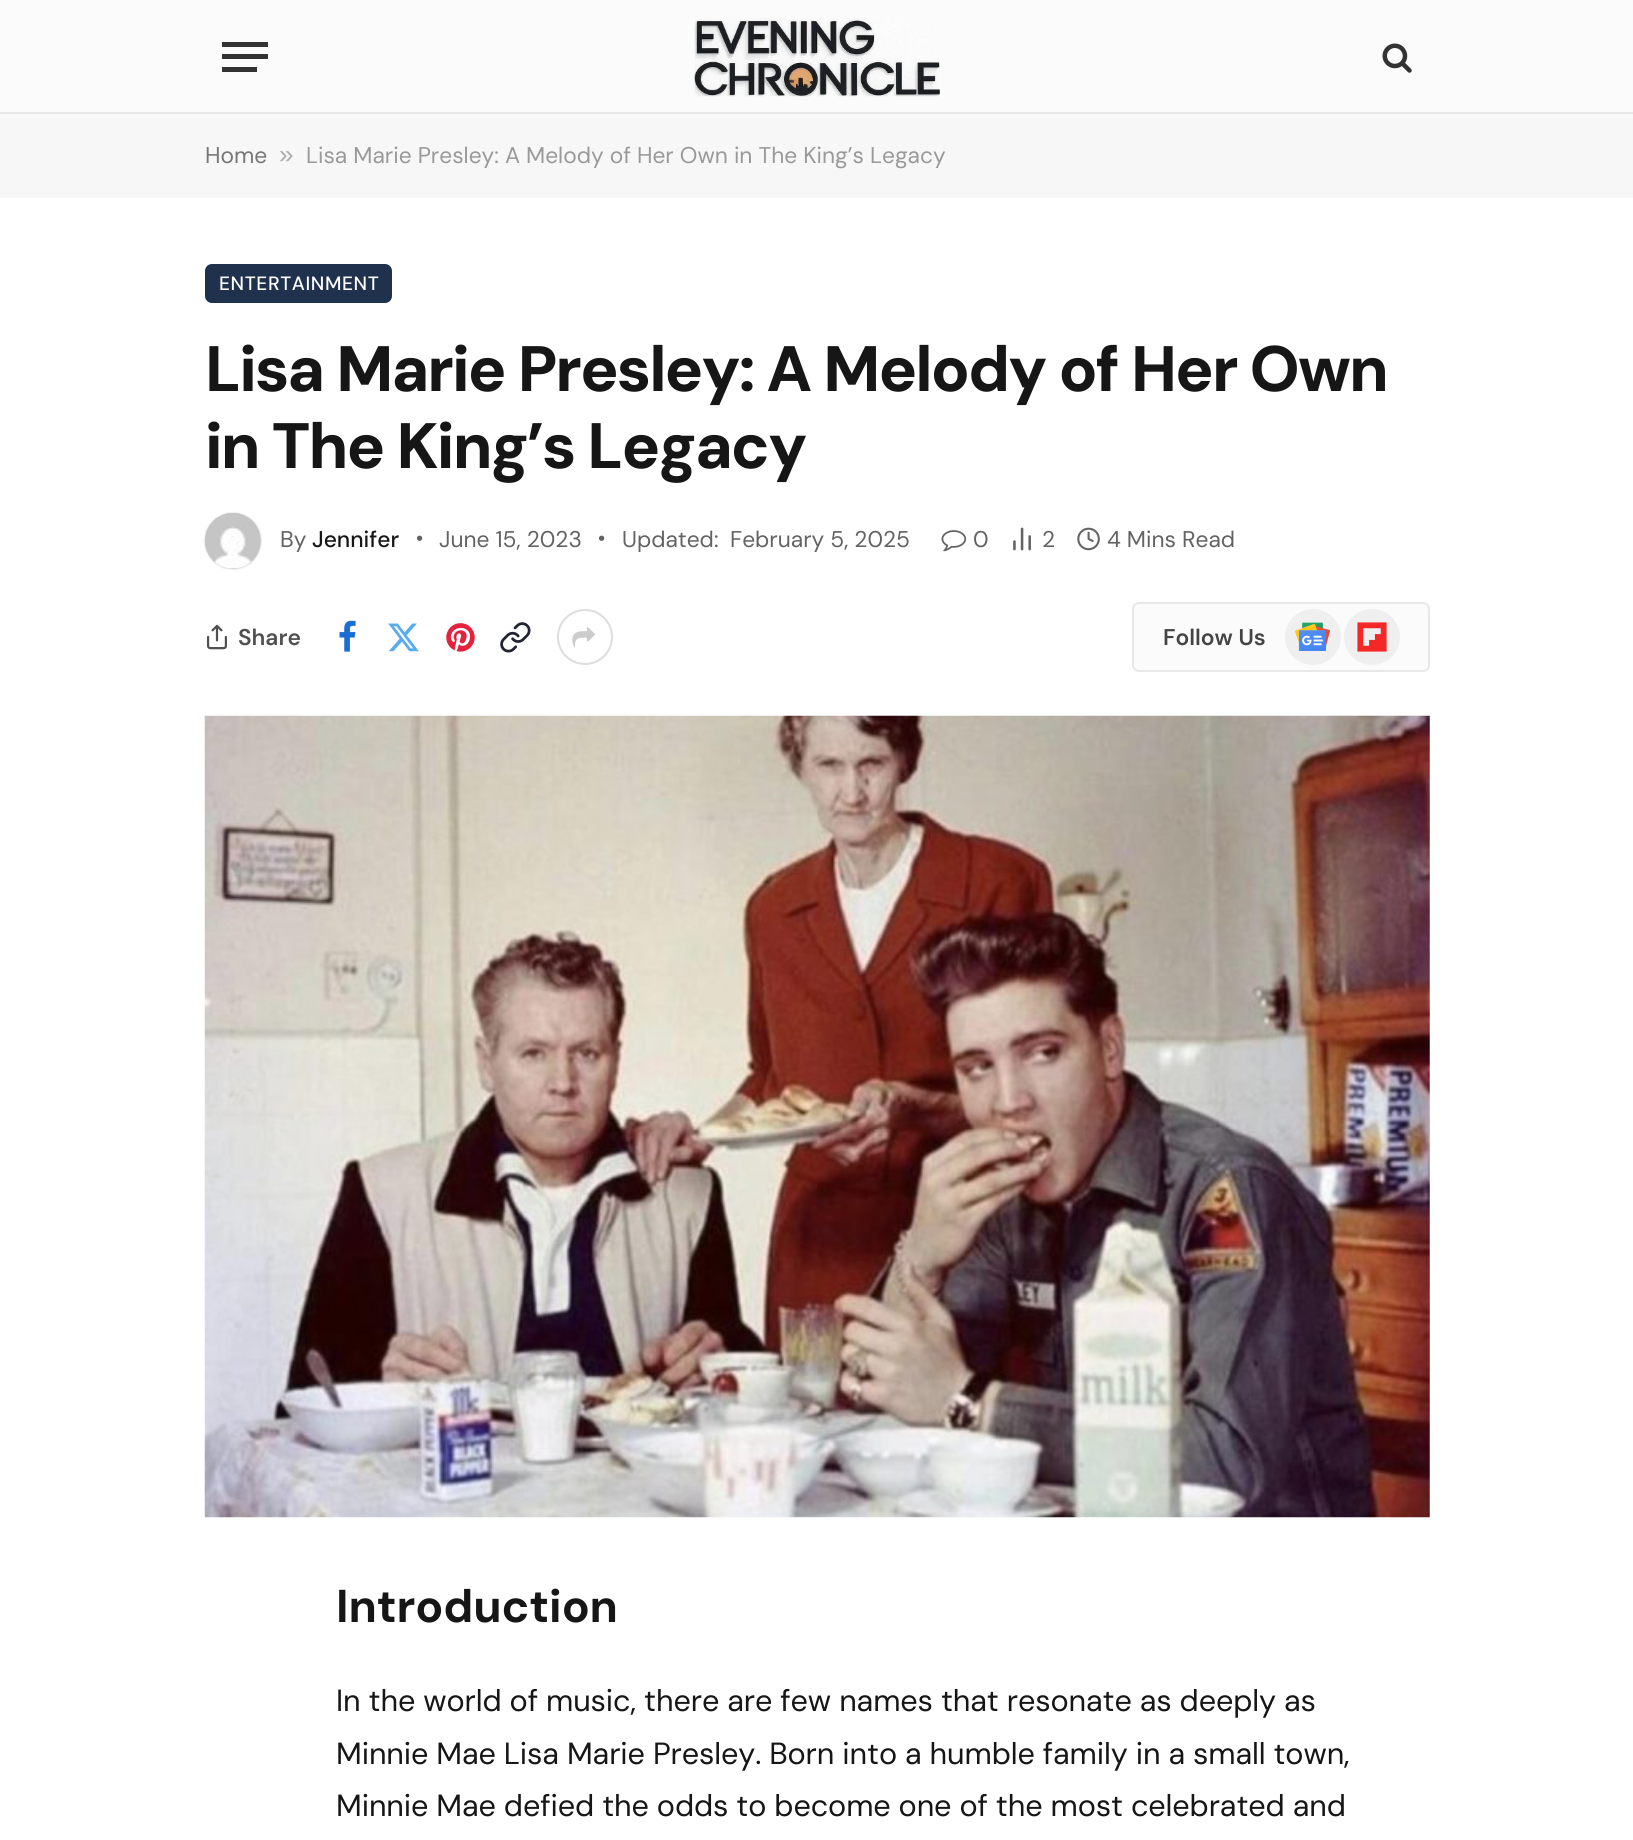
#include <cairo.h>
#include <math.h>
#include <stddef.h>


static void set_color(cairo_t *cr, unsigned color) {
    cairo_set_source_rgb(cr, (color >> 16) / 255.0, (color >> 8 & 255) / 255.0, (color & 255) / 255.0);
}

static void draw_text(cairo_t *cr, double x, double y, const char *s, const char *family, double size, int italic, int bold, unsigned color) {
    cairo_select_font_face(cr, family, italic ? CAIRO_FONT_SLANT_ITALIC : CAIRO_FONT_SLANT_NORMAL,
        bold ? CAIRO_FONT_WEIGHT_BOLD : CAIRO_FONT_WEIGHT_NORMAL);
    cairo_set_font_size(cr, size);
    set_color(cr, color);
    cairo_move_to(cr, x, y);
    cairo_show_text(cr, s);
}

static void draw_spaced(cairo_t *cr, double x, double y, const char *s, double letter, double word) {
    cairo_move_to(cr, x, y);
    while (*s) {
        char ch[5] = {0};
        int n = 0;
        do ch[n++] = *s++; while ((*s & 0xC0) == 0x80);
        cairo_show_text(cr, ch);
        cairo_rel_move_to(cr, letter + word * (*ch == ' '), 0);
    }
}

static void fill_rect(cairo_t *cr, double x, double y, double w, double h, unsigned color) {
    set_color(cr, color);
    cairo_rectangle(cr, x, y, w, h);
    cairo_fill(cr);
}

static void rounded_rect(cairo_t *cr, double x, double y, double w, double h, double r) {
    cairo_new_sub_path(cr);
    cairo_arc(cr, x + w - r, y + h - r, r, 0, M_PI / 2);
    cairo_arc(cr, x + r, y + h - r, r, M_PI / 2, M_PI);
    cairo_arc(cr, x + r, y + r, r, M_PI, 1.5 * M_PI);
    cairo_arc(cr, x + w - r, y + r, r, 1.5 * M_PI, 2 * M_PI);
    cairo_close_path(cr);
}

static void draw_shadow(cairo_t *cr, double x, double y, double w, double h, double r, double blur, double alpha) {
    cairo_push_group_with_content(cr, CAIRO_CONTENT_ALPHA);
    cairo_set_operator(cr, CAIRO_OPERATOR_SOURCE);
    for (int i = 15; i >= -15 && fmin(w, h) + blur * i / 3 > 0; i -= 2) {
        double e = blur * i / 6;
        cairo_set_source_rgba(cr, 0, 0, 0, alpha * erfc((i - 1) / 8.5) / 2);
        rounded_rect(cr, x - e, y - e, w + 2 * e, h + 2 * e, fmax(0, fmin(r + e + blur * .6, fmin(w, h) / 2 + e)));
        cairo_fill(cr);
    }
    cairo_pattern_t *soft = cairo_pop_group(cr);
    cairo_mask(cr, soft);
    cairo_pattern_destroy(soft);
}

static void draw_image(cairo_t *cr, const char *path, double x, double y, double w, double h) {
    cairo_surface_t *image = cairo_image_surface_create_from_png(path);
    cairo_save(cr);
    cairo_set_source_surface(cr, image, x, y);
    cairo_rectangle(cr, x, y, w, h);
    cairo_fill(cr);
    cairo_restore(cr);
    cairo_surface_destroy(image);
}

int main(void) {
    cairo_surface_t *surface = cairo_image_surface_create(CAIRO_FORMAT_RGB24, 1633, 1840);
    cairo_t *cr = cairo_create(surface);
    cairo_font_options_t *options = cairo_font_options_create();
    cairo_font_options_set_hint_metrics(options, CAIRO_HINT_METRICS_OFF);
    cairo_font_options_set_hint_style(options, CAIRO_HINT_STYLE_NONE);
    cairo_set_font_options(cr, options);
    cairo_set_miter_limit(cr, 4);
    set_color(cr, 0xFFFFFF);
    cairo_paint(cr);
    fill_rect(cr, 0, 0, 1633, 112, 0xFBFBFB);
    fill_rect(cr, 0, 112, 1633, 2, 0xE8E8E8);
    fill_rect(cr, 222, 67, 35, 5, 0x333333);
    fill_rect(cr, 222, 42, 46, 5, 0x333333);
    fill_rect(cr, 222, 54, 46, 5, 0x333333);
    draw_image(cr, "assets/img1.png", 694, 17, 246, 80);
    draw_image(cr, "assets/img2.png", 1382, 43, 30, 30);
    fill_rect(cr, 0, 114, 1633, 84, 0xF7F7F7);
    draw_text(cr, 205, 163, "Home", "DM Sans", 22.75, 0, 0, 0x777777);
    draw_text(cr, 279, 163, "»", "Liberation Sans", 26, 0, 0, 0xACACAC);
    draw_text(cr, 306, 163, "Lisa Marie Presley: A Melody of Her Own in The King’s Legacy", "DM Sans", 22.75, 0, 0, 0x999999);
    set_color(cr, 0x1F314D);
    rounded_rect(cr, 205, 264, 187, 39, 7);
    cairo_fill(cr);
    cairo_select_font_face(cr, "DM Sans Medium", CAIRO_FONT_SLANT_NORMAL, CAIRO_FONT_WEIGHT_NORMAL);
    cairo_set_font_size(cr, 19.25);
    set_color(cr, 0xFFFFFF);
    draw_spaced(cr, 219, 290, "ENTERTAINMENT", 0.6, 0);
    cairo_select_font_face(cr, "DM Sans ExtraBold", CAIRO_FONT_SLANT_NORMAL, CAIRO_FONT_WEIGHT_NORMAL);
    cairo_set_font_size(cr, 64.1);
    set_color(cr, 0x161616);
    draw_spaced(cr, 205, 391, "Lisa Marie Presley: A Melody of Her Own", -1.9, 0);
    draw_spaced(cr, 205, 468, "in The King’s Legacy", -1.9, 0);
    set_color(cr, 0x000000);
    draw_shadow(cr, 205, 513, 56, 56, 28, 1, 0.2);
    draw_image(cr, "assets/img3.png", 205, 513, 56, 55);
    draw_text(cr, 280, 547, "By", "DM Sans", 22.75, 0, 0, 0x636363);
    draw_text(cr, 312, 547, "Jennifer", "DM Sans Medium", 22.75, 0, 0, 0x161616);
    draw_text(cr, 415, 554, "·", "DM Sans", 46, 0, 0, 0x636363);
    draw_text(cr, 439, 547, "June 15, 2023", "DM Sans", 22.75, 0, 0, 0x636363);
    draw_text(cr, 597, 554, "·", "DM Sans", 46, 0, 0, 0x636363);
    draw_text(cr, 622, 547, "Updated:", "DM Sans", 22.75, 0, 0, 0x636363);
    draw_text(cr, 730, 547, "February 5, 2025", "DM Sans", 22.75, 0, 0, 0x636363);
    draw_image(cr, "assets/img4.png", 941, 530, 26, 22);
    draw_text(cr, 973, 547, "0", "DM Sans", 22.75, 0, 0, 0x636363);
    draw_image(cr, "assets/img5.png", 1013, 527, 18, 24);
    draw_text(cr, 1042, 547, "2", "DM Sans", 22.75, 0, 0, 0x636363);
    draw_image(cr, "assets/img6.png", 1077, 527, 23, 24);
    draw_text(cr, 1107, 547, "4 Mins Read", "DM Sans", 22.75, 0, 0, 0x636363);
    draw_image(cr, "assets/img7.png", 206, 624, 22, 26);
    draw_text(cr, 238, 645, "Share", "DM Sans SemiBold", 22.75, 0, 0, 0x505050);
    draw_image(cr, "assets/img8.png", 339, 620, 17, 32);
    draw_image(cr, "assets/img9.png", 388, 623, 31, 29);
    draw_image(cr, "assets/img10.png", 446, 623, 29, 29);
    draw_image(cr, "assets/img11.png", 500, 622, 31, 31);
    cairo_arc(cr, 585, 637, 27, 0, 2 * M_PI);
    set_color(cr, 0xDDDDDD);
    cairo_stroke(cr);
    draw_image(cr, "assets/img12.png", 572, 627, 23, 21);
    set_color(cr, 0xFBFBFB);
    rounded_rect(cr, 1133, 603, 296, 68, 6);
    cairo_fill_preserve(cr);
    set_color(cr, 0xE8E8E8);
    cairo_stroke(cr);
    draw_text(cr, 1163, 645, "Follow Us", "DM Sans SemiBold", 22.75, 0, 0, 0x444444);
    set_color(cr, 0xEFEFEF);
    cairo_new_path(cr);
    cairo_arc(cr, 1313, 637, 28, 0, 2 * M_PI);
    cairo_fill(cr);
    draw_image(cr, "assets/img13.png", 1295, 622, 35, 29);
    cairo_arc(cr, 1372, 637, 28, 0, 2 * M_PI);
    cairo_fill(cr);
    draw_image(cr, "assets/img14.png", 1357, 622, 30, 30);
    draw_image(cr, "assets/img15.png", 204, 715, 1226, 803);
    cairo_select_font_face(cr, "DM Sans", CAIRO_FONT_SLANT_NORMAL, CAIRO_FONT_WEIGHT_BOLD);
    cairo_set_font_size(cr, 46);
    set_color(cr, 0x161616);
    draw_spaced(cr, 336, 1622, "Introduction", -0.1, 0);
    cairo_select_font_face(cr, "DM Sans", CAIRO_FONT_SLANT_NORMAL, CAIRO_FONT_WEIGHT_NORMAL);
    cairo_set_font_size(cr, 30.6);
    draw_spaced(cr, 336, 1711, "In the world of music, there are few names that resonate as deeply as", -0.1, 0);
    draw_spaced(cr, 336, 1764, "Minnie Mae Lisa Marie Presley. Born into a humble family in a small town,", -0.1, 0);
    draw_spaced(cr, 336, 1816, "Minnie Mae defied the odds to become one of the most celebrated and", -0.1, 0);
    cairo_surface_write_to_png(surface, "output.png");
    cairo_font_options_destroy(options);
    cairo_destroy(cr);
    cairo_surface_destroy(surface);
    return 0;
}
